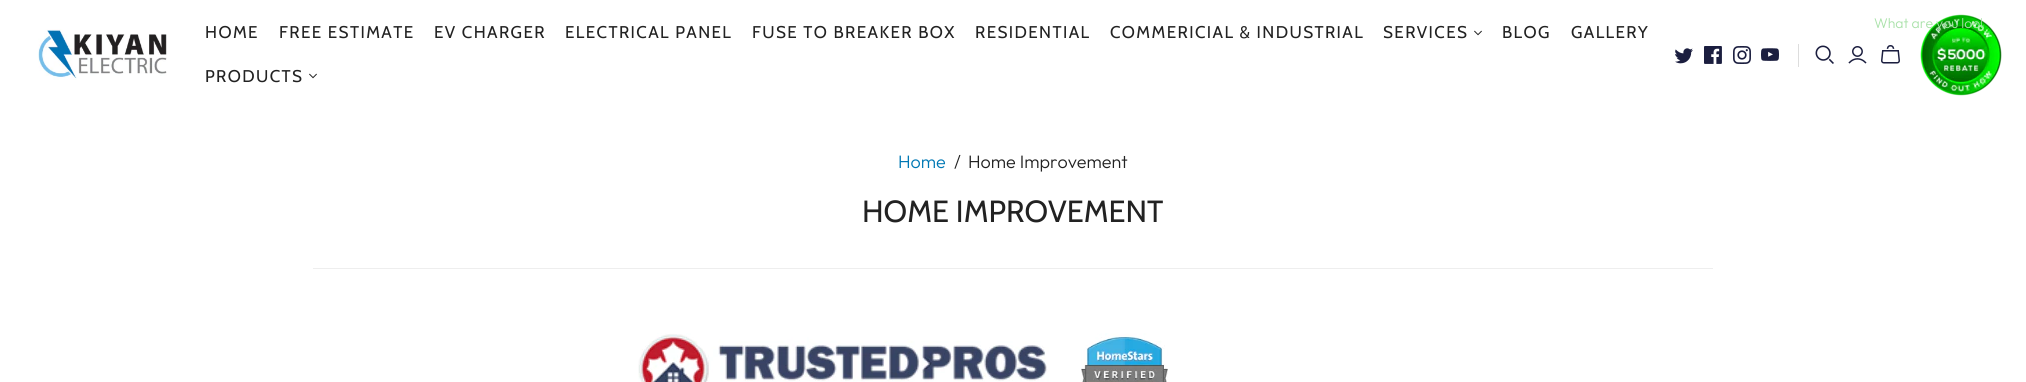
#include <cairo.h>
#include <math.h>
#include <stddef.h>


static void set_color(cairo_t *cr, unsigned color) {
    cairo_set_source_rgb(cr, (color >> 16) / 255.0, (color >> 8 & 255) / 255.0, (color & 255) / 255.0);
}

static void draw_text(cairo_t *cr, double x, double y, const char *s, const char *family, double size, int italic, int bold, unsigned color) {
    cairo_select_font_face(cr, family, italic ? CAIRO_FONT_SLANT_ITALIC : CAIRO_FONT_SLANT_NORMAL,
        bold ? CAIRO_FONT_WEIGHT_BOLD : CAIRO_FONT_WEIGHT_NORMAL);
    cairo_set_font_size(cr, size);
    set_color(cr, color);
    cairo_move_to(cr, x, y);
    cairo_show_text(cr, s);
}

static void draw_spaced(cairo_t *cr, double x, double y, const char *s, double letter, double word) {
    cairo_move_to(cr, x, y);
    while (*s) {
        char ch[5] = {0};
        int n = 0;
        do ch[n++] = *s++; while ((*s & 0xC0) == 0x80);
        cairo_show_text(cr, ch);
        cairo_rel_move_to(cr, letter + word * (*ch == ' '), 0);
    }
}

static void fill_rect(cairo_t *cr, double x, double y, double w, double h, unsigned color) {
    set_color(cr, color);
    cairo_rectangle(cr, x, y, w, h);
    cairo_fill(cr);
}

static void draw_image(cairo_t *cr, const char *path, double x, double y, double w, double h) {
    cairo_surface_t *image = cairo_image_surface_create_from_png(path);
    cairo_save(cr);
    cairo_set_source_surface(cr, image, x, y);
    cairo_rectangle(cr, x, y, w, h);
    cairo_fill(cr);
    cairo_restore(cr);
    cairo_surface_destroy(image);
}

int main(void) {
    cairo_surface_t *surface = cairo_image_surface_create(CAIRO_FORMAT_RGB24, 2026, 382);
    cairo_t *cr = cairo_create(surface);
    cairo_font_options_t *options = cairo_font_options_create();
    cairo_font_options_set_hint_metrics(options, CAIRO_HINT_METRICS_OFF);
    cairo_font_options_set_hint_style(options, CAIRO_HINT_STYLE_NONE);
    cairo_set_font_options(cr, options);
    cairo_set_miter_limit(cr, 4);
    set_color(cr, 0xFFFFFF);
    cairo_paint(cr);
    draw_image(cr, "assets/img1.png", 38, 29, 129, 51);
    cairo_select_font_face(cr, "Cabin", CAIRO_FONT_SLANT_NORMAL, CAIRO_FONT_WEIGHT_NORMAL);
    cairo_set_font_size(cr, 17);
    set_color(cr, 0x222222);
    draw_spaced(cr, 205, 38, "HOME", 1.4, 0);
    draw_spaced(cr, 279, 38, "FREE ESTIMATE", 1.4, 0);
    draw_spaced(cr, 434, 38, "EV CHARGER", 1.4, 0);
    draw_spaced(cr, 565, 38, "ELECTRICAL PANEL", 1.4, 0);
    draw_spaced(cr, 752, 38, "FUSE TO BREAKER BOX", 1.4, 0);
    draw_spaced(cr, 975, 38, "RESIDENTIAL", 1.4, 0);
    draw_spaced(cr, 1110, 38, "COMMERICIAL & INDUSTRIAL", 1.4, 0);
    draw_spaced(cr, 1383, 38, "SERVICES", 1.4, 0);
    draw_image(cr, "assets/img2.png", 1474, 30, 8, 6);
    draw_spaced(cr, 1502, 38, "BLOG", 1.4, 0);
    draw_spaced(cr, 1571, 38, "GALLERY", 1.4, 0);
    draw_spaced(cr, 205, 82, "PRODUCTS", 1.4, 0);
    draw_image(cr, "assets/img2.png", 309, 73, 8, 6);
    draw_image(cr, "assets/img3.png", 1848, 46, 19, 18);
    draw_image(cr, "assets/img4.png", 1881, 45, 19, 19);
    draw_image(cr, "assets/img5.png", 1920, 14, 82, 82);
    cairo_save(cr);
    cairo_rectangle(cr, 1874, 14, 108, 18);
    cairo_clip(cr);
    draw_text(cr, 1874, 28, "What are you look", "Outfit Light", 14, 0, 0, 0xA8E1A8);
    cairo_restore(cr);
    draw_image(cr, "assets/img6.png", 1815, 45, 19, 19);
    draw_image(cr, "assets/img7.png", 1675, 48, 18, 16);
    draw_image(cr, "assets/img8.png", 1704, 46, 18, 18);
    draw_image(cr, "assets/img9.png", 1733, 46, 18, 18);
    draw_image(cr, "assets/img10.png", 1761, 48, 18, 13);
    fill_rect(cr, 1798, 44, 1, 23, 0xDDDDDD);
    draw_text(cr, 898, 168, "Home", "Outfit Light", 18, 0, 0, 0x0078B4);
    draw_text(cr, 954, 168, "/", "Outfit Light", 18, 0, 0, 0x222222);
    draw_text(cr, 968, 168, "Home Improvement", "Outfit Light", 18, 0, 0, 0x222222);
    fill_rect(cr, 313, 268, 1400, 1, 0xEEEEEE);
    draw_text(cr, 862, 222, "HOME IMPROVEMENT", "Cabin", 30.6, 0, 0, 0x222222);
    draw_image(cr, "assets/img11.png", 638, 333, 530, 49);
    cairo_surface_write_to_png(surface, "output.png");
    cairo_font_options_destroy(options);
    cairo_destroy(cr);
    cairo_surface_destroy(surface);
    return 0;
}
